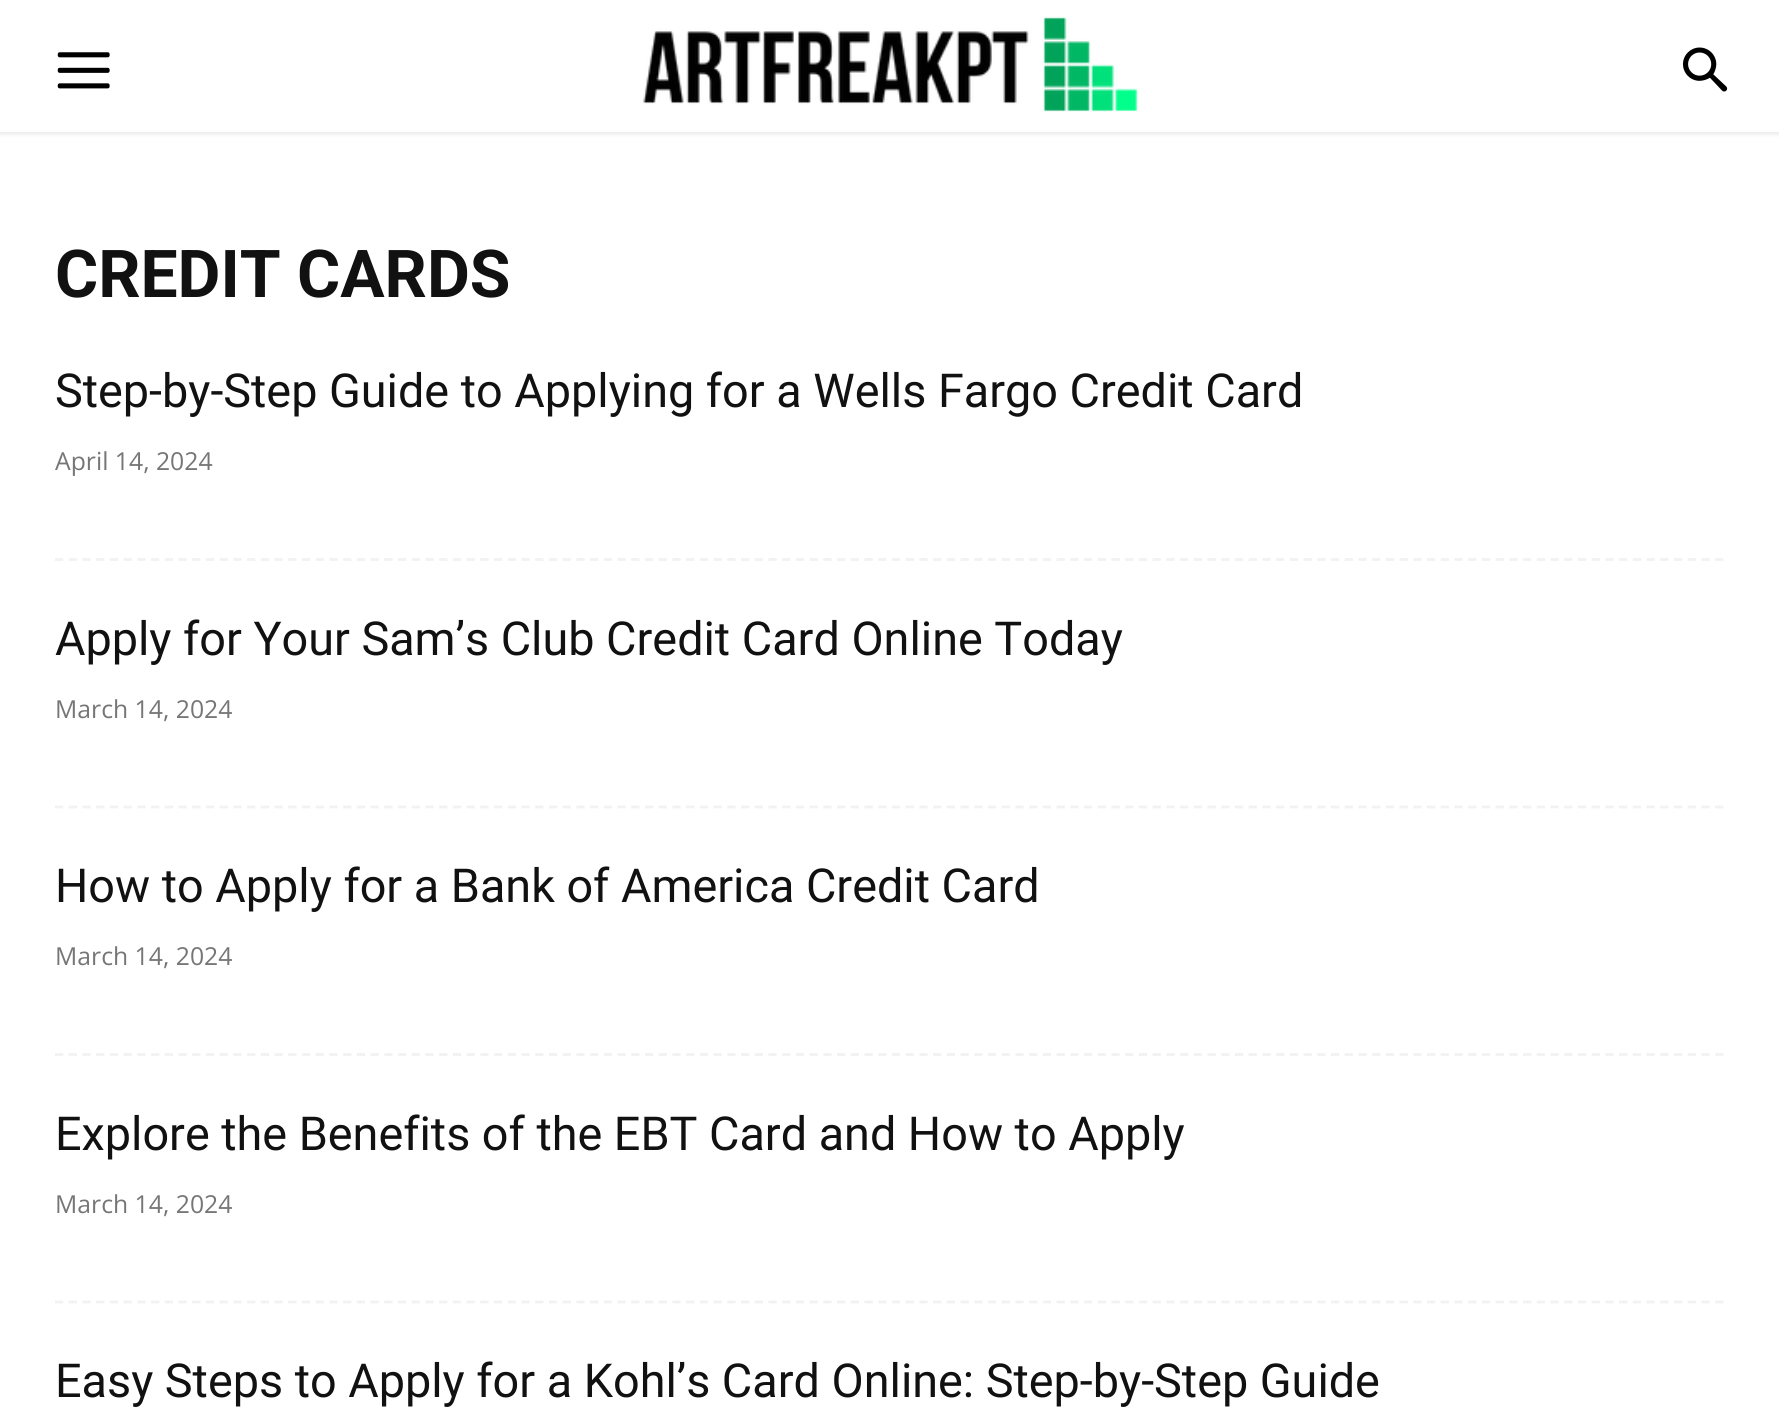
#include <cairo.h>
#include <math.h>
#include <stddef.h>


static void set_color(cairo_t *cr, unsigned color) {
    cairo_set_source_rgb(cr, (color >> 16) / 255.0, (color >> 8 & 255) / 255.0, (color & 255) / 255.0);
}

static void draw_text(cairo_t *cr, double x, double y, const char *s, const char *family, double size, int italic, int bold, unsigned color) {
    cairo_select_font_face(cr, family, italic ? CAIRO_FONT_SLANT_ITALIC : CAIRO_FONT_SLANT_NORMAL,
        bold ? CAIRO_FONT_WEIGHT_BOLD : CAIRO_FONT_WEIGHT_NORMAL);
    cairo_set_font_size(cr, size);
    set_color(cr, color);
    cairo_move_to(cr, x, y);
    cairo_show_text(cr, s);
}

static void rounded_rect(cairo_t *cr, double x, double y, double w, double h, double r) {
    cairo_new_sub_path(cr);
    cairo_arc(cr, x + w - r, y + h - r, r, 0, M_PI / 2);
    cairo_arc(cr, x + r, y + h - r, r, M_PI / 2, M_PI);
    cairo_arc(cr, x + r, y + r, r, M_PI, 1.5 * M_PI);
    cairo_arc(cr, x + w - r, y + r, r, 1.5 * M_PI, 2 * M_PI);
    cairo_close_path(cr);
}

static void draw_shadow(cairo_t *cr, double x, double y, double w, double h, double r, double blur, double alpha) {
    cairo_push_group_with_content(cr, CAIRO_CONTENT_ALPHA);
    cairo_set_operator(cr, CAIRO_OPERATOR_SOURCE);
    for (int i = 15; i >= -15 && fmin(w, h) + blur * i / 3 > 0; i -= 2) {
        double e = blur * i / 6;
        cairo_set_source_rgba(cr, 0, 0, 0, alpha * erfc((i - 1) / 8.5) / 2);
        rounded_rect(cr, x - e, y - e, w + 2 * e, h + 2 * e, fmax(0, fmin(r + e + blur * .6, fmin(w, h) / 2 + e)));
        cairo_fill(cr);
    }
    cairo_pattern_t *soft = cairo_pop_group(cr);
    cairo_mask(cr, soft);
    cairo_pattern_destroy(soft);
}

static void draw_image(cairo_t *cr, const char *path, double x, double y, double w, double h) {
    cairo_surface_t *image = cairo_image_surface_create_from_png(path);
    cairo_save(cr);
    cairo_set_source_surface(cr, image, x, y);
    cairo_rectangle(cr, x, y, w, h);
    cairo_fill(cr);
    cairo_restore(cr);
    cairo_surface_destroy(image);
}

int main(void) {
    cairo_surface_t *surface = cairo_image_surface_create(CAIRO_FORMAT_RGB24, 1779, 1419);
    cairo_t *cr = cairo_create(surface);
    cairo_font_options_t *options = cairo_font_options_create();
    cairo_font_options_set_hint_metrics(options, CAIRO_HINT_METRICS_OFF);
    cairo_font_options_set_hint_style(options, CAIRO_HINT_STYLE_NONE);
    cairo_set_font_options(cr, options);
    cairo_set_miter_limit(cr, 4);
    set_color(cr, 0xFFFFFF);
    cairo_paint(cr);
    cairo_save(cr);
    cairo_rectangle(cr, 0, 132, 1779, 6);
    cairo_clip(cr);
    set_color(cr, 0xEEEEEE);
    draw_shadow(cr, -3, -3, 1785, 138, 0, 1.5, 1);
    cairo_restore(cr);
    draw_image(cr, "assets/img1.png", 57, 52, 53, 37);
    draw_image(cr, "assets/img2.png", 643, 16, 495, 96);
    draw_image(cr, "assets/img3.png", 1683, 47, 45, 45);
    draw_text(cr, 55, 297, "CREDIT CARDS", "Roboto", 66, 0, 1, 0x111111);
    cairo_new_path(cr);
    cairo_move_to(cr, 55, 559.5);
    cairo_line_to(cr, 1724, 559.5);
    set_color(cr, 0xF2F2F2);
    cairo_set_line_width(cr, 2.8);
    cairo_set_dash(cr, (double[]){8.25, 5.47}, 2, 0);
    cairo_stroke(cr);
    draw_text(cr, 55, 407, "Step-by-Step Guide to Applying for a Wells Fargo Credit Card", "Roboto", 46.75, 0, 0, 0x111111);
    draw_text(cr, 55, 470, "April 14, 2024", "Open Sans", 24.75, 0, 0, 0x767676);
    cairo_new_path(cr);
    cairo_move_to(cr, 55, 807);
    cairo_line_to(cr, 1724, 807);
    set_color(cr, 0xF2F2F2);
    cairo_stroke(cr);
    draw_text(cr, 55, 655, "Apply for Your Sam’s Club Credit Card Online Today", "Roboto", 46.75, 0, 0, 0x111111);
    draw_text(cr, 55, 718, "March 14, 2024", "Open Sans", 24.75, 0, 0, 0x767676);
    cairo_new_path(cr);
    cairo_move_to(cr, 55, 1054.5);
    cairo_line_to(cr, 1724, 1054.5);
    set_color(cr, 0xF2F2F2);
    cairo_stroke(cr);
    draw_text(cr, 55, 902, "How to Apply for a Bank of America Credit Card", "Roboto", 46.75, 0, 0, 0x111111);
    draw_text(cr, 55, 965, "March 14, 2024", "Open Sans", 24.75, 0, 0, 0x767676);
    cairo_new_path(cr);
    cairo_move_to(cr, 55, 1302);
    cairo_line_to(cr, 1724, 1302);
    set_color(cr, 0xF2F2F2);
    cairo_stroke(cr);
    draw_text(cr, 55, 1150, "Explore the Benefits of the EBT Card and How to Apply", "Roboto", 46.75, 0, 0, 0x111111);
    draw_text(cr, 55, 1213, "March 14, 2024", "Open Sans", 24.75, 0, 0, 0x767676);
    draw_text(cr, 55, 1397, "Easy Steps to Apply for a Kohl’s Card Online: Step-by-Step Guide", "Roboto", 46.75, 0, 0, 0x111111);
    cairo_surface_write_to_png(surface, "output.png");
    cairo_font_options_destroy(options);
    cairo_destroy(cr);
    cairo_surface_destroy(surface);
    return 0;
}
